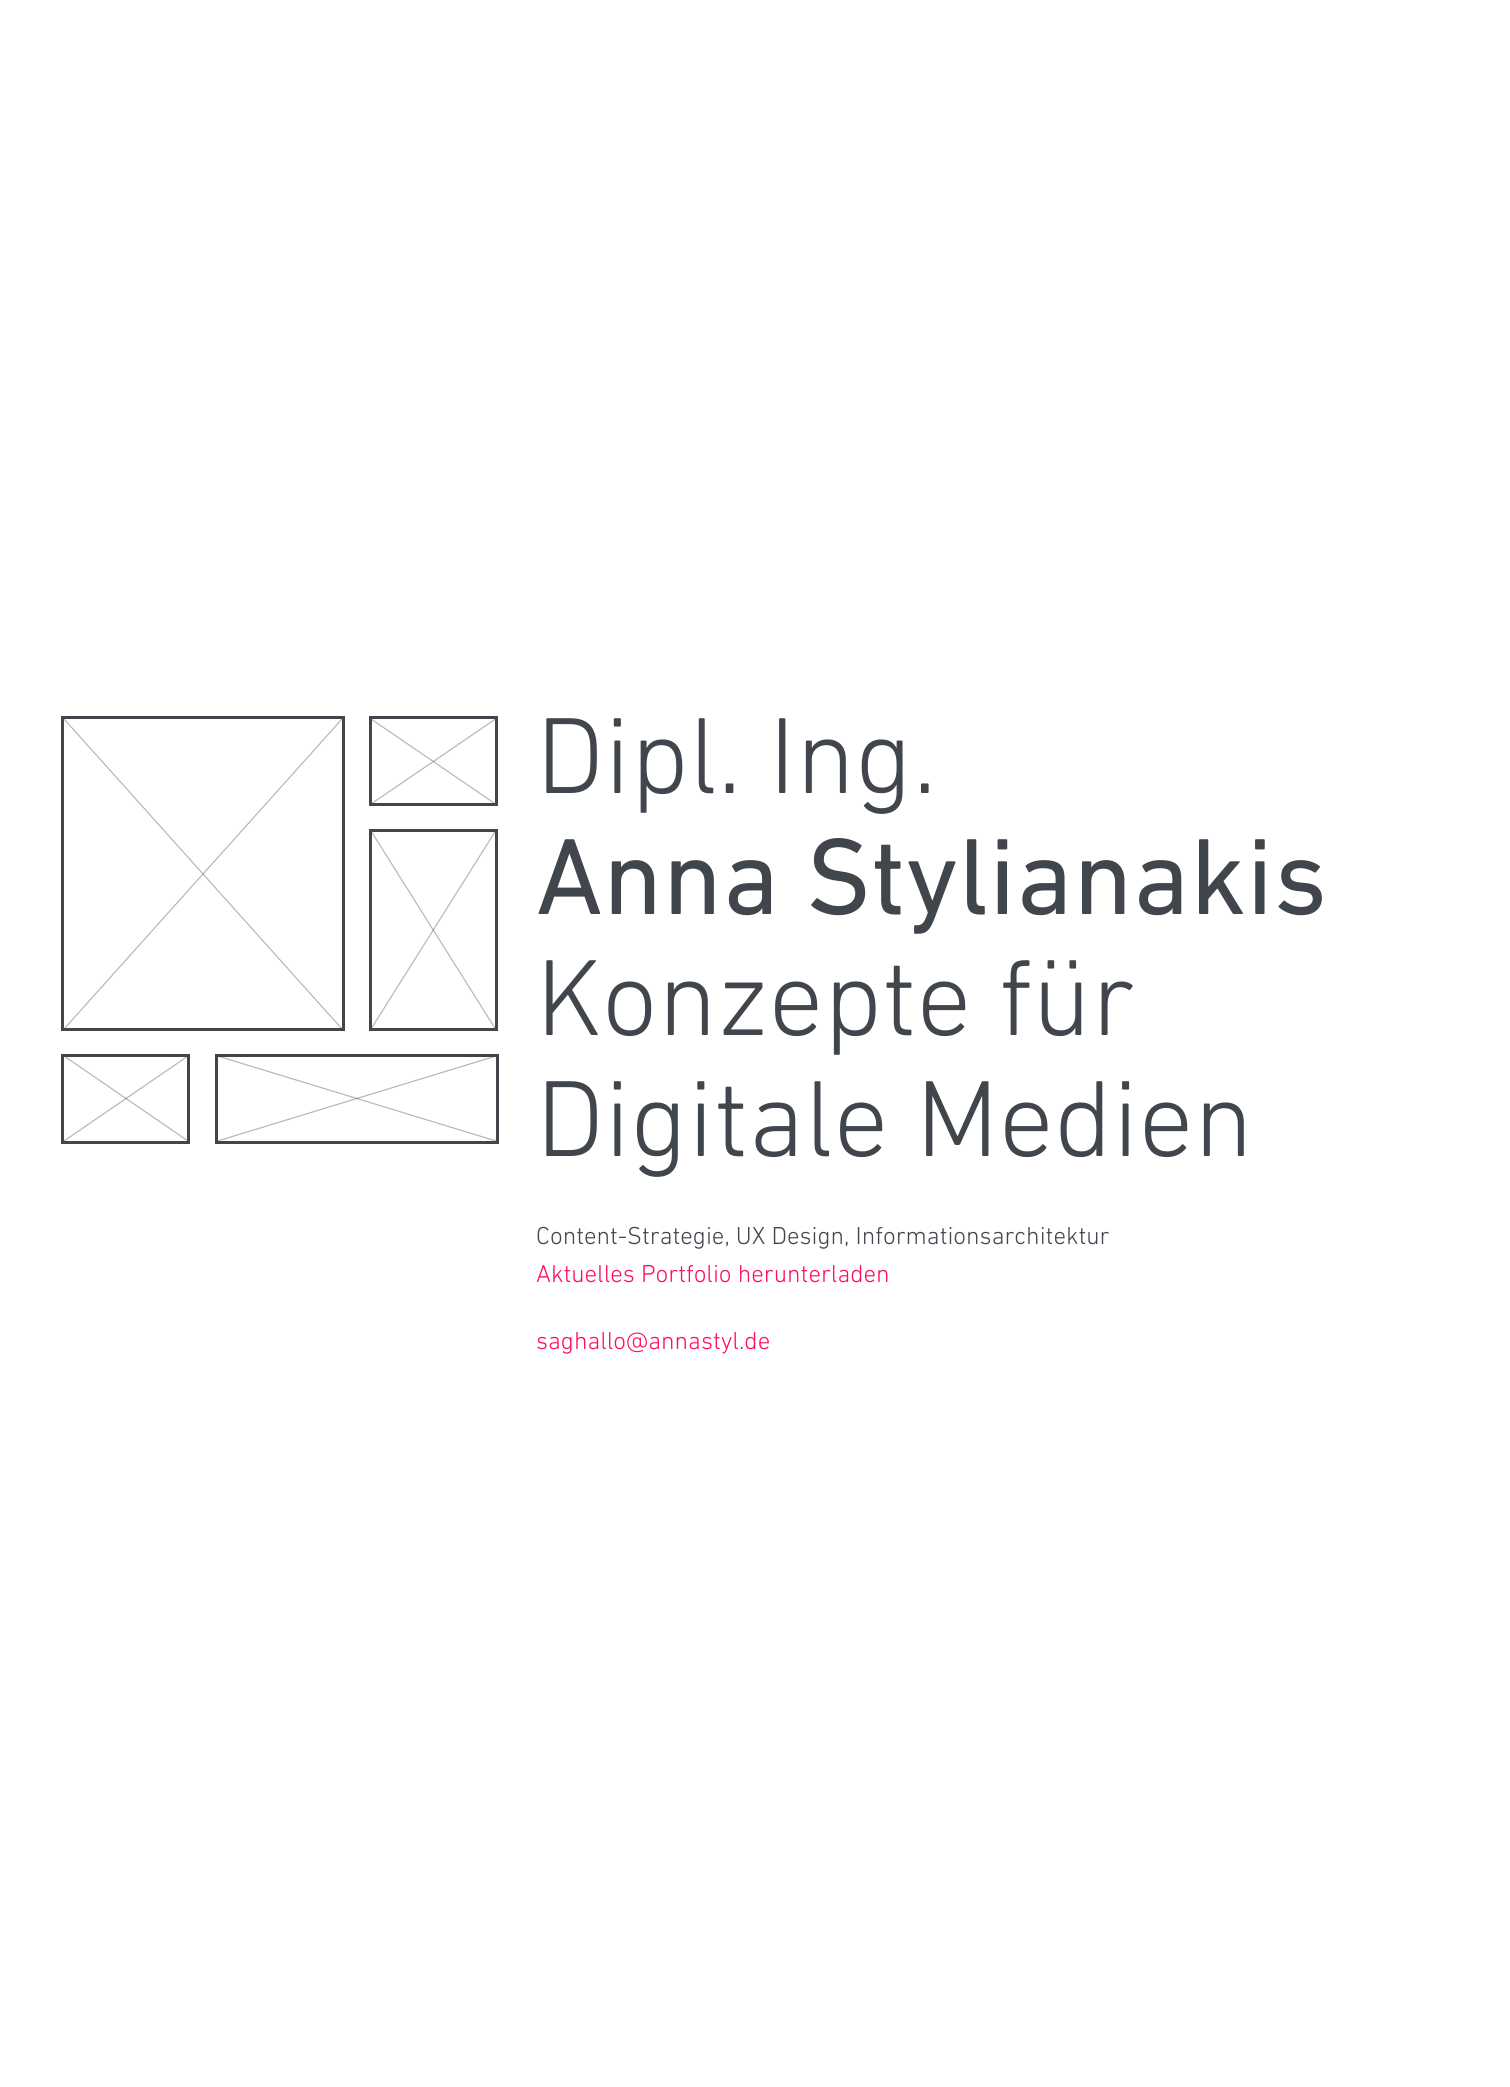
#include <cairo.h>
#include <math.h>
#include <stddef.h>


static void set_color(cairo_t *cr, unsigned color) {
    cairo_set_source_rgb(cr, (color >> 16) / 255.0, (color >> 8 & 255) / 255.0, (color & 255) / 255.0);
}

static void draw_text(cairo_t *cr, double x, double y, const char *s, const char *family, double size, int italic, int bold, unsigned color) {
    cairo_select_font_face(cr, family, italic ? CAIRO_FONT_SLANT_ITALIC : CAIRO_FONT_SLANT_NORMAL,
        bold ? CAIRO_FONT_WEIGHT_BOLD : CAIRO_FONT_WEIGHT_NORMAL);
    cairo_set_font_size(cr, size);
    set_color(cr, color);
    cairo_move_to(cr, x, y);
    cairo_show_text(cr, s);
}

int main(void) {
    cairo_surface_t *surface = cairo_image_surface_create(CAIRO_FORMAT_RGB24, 1510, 2087);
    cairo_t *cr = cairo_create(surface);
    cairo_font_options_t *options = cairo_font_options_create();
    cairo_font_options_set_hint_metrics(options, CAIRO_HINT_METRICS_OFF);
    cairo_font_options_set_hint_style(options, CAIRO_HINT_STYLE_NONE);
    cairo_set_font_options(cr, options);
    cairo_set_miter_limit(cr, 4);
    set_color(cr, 0xFFFFFF);
    cairo_paint(cr);
    cairo_rectangle(cr, 62.5, 717.5, 281, 312);
    set_color(cr, 0x41464D);
    cairo_set_line_width(cr, 3);
    cairo_stroke(cr);
    cairo_save(cr);
    cairo_rectangle(cr, 64, 719, 279, 310);
    cairo_clip(cr);
    cairo_new_path(cr);
    cairo_move_to(cr, 64, 719);
    cairo_line_to(cr, 342, 1029);
    cairo_set_source_rgba(cr, 0.255, 0.275, 0.302, 0.4);
    cairo_set_line_width(cr, 1.2);
    cairo_set_line_cap(cr, CAIRO_LINE_CAP_SQUARE);
    cairo_stroke(cr);
    cairo_new_path(cr);
    cairo_move_to(cr, 64, 1029);
    cairo_line_to(cr, 342, 719);
    cairo_stroke(cr);
    cairo_restore(cr);
    cairo_rectangle(cr, 370.5, 717.5, 126, 87);
    cairo_stroke(cr);
    cairo_save(cr);
    cairo_rectangle(cr, 371, 719, 124, 85);
    cairo_clip(cr);
    cairo_new_path(cr);
    cairo_move_to(cr, 371, 719);
    cairo_line_to(cr, 495.5, 804);
    cairo_set_source_rgba(cr, 0.255, 0.275, 0.302, 0.4);
    cairo_set_line_width(cr, 1.2);
    cairo_set_line_cap(cr, CAIRO_LINE_CAP_SQUARE);
    cairo_stroke(cr);
    cairo_new_path(cr);
    cairo_move_to(cr, 371, 804);
    cairo_line_to(cr, 495.5, 719);
    cairo_stroke(cr);
    cairo_restore(cr);
    cairo_rectangle(cr, 370.5, 830.5, 126, 199);
    cairo_stroke(cr);
    cairo_save(cr);
    cairo_rectangle(cr, 371, 831, 124, 198);
    cairo_clip(cr);
    cairo_new_path(cr);
    cairo_move_to(cr, 371, 831);
    cairo_line_to(cr, 495.5, 1029);
    cairo_set_source_rgba(cr, 0.255, 0.275, 0.302, 0.4);
    cairo_set_line_width(cr, 1.2);
    cairo_set_line_cap(cr, CAIRO_LINE_CAP_SQUARE);
    cairo_stroke(cr);
    cairo_new_path(cr);
    cairo_move_to(cr, 371, 1029);
    cairo_line_to(cr, 495.5, 831);
    cairo_stroke(cr);
    cairo_restore(cr);
    cairo_rectangle(cr, 62.5, 1055.5, 126, 87);
    cairo_stroke(cr);
    cairo_save(cr);
    cairo_rectangle(cr, 64, 1056, 124, 85);
    cairo_clip(cr);
    cairo_new_path(cr);
    cairo_move_to(cr, 64, 1056);
    cairo_line_to(cr, 188, 1141);
    cairo_set_source_rgba(cr, 0.255, 0.275, 0.302, 0.4);
    cairo_set_line_width(cr, 1.2);
    cairo_set_line_cap(cr, CAIRO_LINE_CAP_SQUARE);
    cairo_stroke(cr);
    cairo_new_path(cr);
    cairo_move_to(cr, 64, 1141);
    cairo_line_to(cr, 188, 1056);
    cairo_stroke(cr);
    cairo_restore(cr);
    cairo_rectangle(cr, 216.5, 1055.5, 281, 87);
    cairo_stroke(cr);
    cairo_save(cr);
    cairo_rectangle(cr, 218, 1056, 278, 85);
    cairo_clip(cr);
    cairo_new_path(cr);
    cairo_move_to(cr, 217.5, 1056);
    cairo_line_to(cr, 496, 1141);
    cairo_set_source_rgba(cr, 0.255, 0.275, 0.302, 0.4);
    cairo_set_line_width(cr, 1.2);
    cairo_set_line_cap(cr, CAIRO_LINE_CAP_SQUARE);
    cairo_stroke(cr);
    cairo_new_path(cr);
    cairo_move_to(cr, 217.5, 1141);
    cairo_line_to(cr, 496, 1056);
    cairo_stroke(cr);
    cairo_restore(cr);
    draw_text(cr, 536, 793, "Dipl. Ing.", "DIN Next Light", 110, 0, 0, 0x41464D);
    draw_text(cr, 536, 914, "Anna Stylianakis", "DIN Next", 110, 0, 0, 0x41464D);
    draw_text(cr, 536, 1035, "Konzepte für", "DIN Next Light", 110, 0, 0, 0x41464D);
    draw_text(cr, 536, 1156, "Digitale Medien", "DIN Next Light", 110, 0, 0, 0x41464D);
    draw_text(cr, 536, 1244, "Content-Strategie, UX Design, Informationsarchitektur", "DIN Next Light", 25, 0, 0, 0x41464D);
    draw_text(cr, 536, 1282, "Aktuelles Portfolio herunterladen", "DIN Next Light", 25, 0, 0, 0xFF0C60);
    draw_text(cr, 536, 1349, "saghallo@annastyl.de", "DIN Next Light", 25, 0, 0, 0xFF0C60);
    cairo_surface_write_to_png(surface, "output.png");
    cairo_font_options_destroy(options);
    cairo_destroy(cr);
    cairo_surface_destroy(surface);
    return 0;
}
